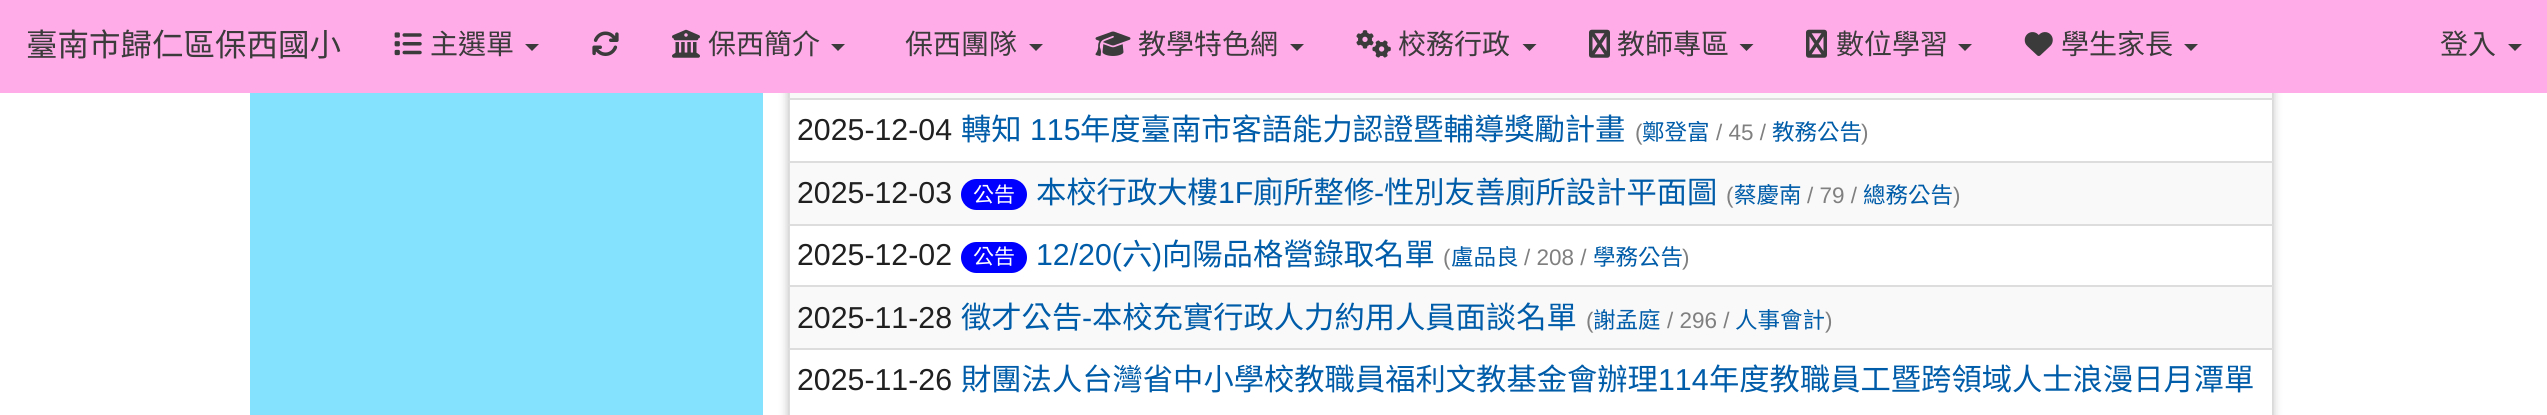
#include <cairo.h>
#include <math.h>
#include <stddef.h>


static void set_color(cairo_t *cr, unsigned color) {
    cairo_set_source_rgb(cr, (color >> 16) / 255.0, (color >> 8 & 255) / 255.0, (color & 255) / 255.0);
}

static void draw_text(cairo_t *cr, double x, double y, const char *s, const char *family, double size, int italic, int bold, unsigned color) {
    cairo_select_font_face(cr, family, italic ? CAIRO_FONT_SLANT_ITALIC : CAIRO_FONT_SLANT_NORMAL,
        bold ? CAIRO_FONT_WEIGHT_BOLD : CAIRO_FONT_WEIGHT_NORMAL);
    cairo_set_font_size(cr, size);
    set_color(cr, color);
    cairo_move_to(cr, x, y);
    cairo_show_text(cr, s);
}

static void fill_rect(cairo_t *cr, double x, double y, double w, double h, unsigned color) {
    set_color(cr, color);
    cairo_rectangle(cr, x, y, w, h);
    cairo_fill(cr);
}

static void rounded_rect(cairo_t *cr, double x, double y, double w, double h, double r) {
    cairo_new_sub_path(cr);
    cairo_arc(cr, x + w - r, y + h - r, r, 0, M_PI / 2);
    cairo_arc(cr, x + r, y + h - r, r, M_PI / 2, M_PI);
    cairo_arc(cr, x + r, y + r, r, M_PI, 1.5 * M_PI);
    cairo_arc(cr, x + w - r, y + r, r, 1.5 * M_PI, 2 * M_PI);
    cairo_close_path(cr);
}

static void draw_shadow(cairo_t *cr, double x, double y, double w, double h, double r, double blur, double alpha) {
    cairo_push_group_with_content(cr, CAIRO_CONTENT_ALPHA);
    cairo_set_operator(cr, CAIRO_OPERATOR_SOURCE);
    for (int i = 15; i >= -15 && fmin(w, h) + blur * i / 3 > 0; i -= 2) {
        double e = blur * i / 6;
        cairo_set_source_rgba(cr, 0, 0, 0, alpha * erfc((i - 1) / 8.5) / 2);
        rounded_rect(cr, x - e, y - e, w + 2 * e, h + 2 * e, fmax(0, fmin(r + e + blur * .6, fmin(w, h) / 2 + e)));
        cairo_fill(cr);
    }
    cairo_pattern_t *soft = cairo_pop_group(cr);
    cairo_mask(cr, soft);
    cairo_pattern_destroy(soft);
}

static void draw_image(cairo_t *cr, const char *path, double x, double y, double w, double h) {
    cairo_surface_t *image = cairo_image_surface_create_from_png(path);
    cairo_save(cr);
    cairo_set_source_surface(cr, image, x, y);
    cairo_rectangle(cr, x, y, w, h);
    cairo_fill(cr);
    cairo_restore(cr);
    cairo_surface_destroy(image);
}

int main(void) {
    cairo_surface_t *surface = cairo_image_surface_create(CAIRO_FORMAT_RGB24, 2547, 415);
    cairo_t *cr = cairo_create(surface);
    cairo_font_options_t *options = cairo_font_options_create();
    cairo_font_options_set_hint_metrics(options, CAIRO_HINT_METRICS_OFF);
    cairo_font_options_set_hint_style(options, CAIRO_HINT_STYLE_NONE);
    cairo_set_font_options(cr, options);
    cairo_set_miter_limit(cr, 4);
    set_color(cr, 0xFFFFFF);
    cairo_paint(cr);
    set_color(cr, 0x000000);
    draw_shadow(cr, 789, 0, 1483, 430, 0, 5, 0.3);
    fill_rect(cr, 0, 0, 2547, 93, 0xFFACE8);
    draw_text(cr, 26, 56, "臺南市歸仁區保西國小", "Noto Sans CJK TC", 31.5, 0, 0, 0x3B3B3B);
    draw_image(cr, "assets/img1.png", 394, 32, 28, 24);
    draw_text(cr, 430, 54, "主選單", "Noto Sans CJK TC", 28, 0, 0, 0x3B3B3B);
    cairo_new_path(cr);
    cairo_move_to(cr, 525, 44);
    cairo_line_to(cr, 539, 44);
    cairo_line_to(cr, 532, 51);
    cairo_close_path(cr);
    cairo_fill(cr);
    draw_image(cr, "assets/img2.png", 592, 31, 27, 25);
    draw_image(cr, "assets/img3.png", 672, 29, 28, 29);
    draw_text(cr, 708, 54, "保西簡介", "Noto Sans CJK TC", 28, 0, 0, 0x3B3B3B);
    cairo_new_path(cr);
    cairo_move_to(cr, 831, 44);
    cairo_line_to(cr, 845, 44);
    cairo_line_to(cr, 838, 51);
    cairo_close_path(cr);
    cairo_fill(cr);
    draw_text(cr, 905, 54, "保西團隊", "Noto Sans CJK TC", 28, 0, 0, 0x3B3B3B);
    cairo_new_path(cr);
    cairo_move_to(cr, 1029, 44);
    cairo_line_to(cr, 1043, 44);
    cairo_line_to(cr, 1036, 51);
    cairo_close_path(cr);
    cairo_fill(cr);
    draw_image(cr, "assets/img4.png", 1095, 31, 36, 25);
    draw_text(cr, 1138, 54, "教學特色網", "Noto Sans CJK TC", 28, 0, 0, 0x3B3B3B);
    cairo_new_path(cr);
    cairo_move_to(cr, 1290, 44);
    cairo_line_to(cr, 1304, 44);
    cairo_line_to(cr, 1297, 51);
    cairo_close_path(cr);
    cairo_fill(cr);
    draw_image(cr, "assets/img5.png", 1356, 30, 35, 28);
    draw_text(cr, 1398, 54, "校務行政", "Noto Sans CJK TC", 28, 0, 0, 0x3B3B3B);
    cairo_new_path(cr);
    cairo_move_to(cr, 1522.5, 44);
    cairo_line_to(cr, 1536.5, 44);
    cairo_line_to(cr, 1529.5, 51);
    cairo_close_path(cr);
    cairo_fill(cr);
    draw_image(cr, "assets/img6.png", 1589, 29, 21, 29);
    draw_text(cr, 1617, 54, "教師專區", "Noto Sans CJK TC", 28, 0, 0, 0x3B3B3B);
    cairo_new_path(cr);
    cairo_move_to(cr, 1739.5, 44);
    cairo_line_to(cr, 1753.5, 44);
    cairo_line_to(cr, 1746.5, 51);
    cairo_close_path(cr);
    cairo_fill(cr);
    draw_image(cr, "assets/img6.png", 1806, 29, 21, 29);
    draw_text(cr, 1836, 54, "數位學習", "Noto Sans CJK TC", 28, 0, 0, 0x3B3B3B);
    cairo_new_path(cr);
    cairo_move_to(cr, 1958, 44);
    cairo_line_to(cr, 1972, 44);
    cairo_line_to(cr, 1965, 51);
    cairo_close_path(cr);
    cairo_fill(cr);
    draw_image(cr, "assets/img7.png", 2024, 32, 29, 24);
    draw_text(cr, 2061, 54, "學生家長", "Noto Sans CJK TC", 28, 0, 0, 0x3B3B3B);
    cairo_new_path(cr);
    cairo_move_to(cr, 2184, 44);
    cairo_line_to(cr, 2198, 44);
    cairo_line_to(cr, 2191, 51);
    cairo_close_path(cr);
    cairo_fill(cr);
    draw_text(cr, 2440, 54, "登入", "Noto Sans CJK TC", 28, 0, 0, 0x3B3B3B);
    cairo_new_path(cr);
    cairo_move_to(cr, 2508, 44);
    cairo_line_to(cr, 2522, 44);
    cairo_line_to(cr, 2515, 51);
    cairo_close_path(cr);
    cairo_fill(cr);
    fill_rect(cr, 250, 93, 513, 322, 0x84E2FF);
    fill_rect(cr, 790, 100, 1482, 315, 0xFFFFFF);
    fill_rect(cr, 790, 93, 1482, 5, 0xF9F9F9);
    fill_rect(cr, 788, 98, 1485, 2, 0xDDDDDD);
    fill_rect(cr, 788, 161, 1485, 2, 0xDDDDDD);
    fill_rect(cr, 788, 224, 1485, 2, 0xDDDDDD);
    fill_rect(cr, 788, 285, 1485, 2, 0xDDDDDD);
    fill_rect(cr, 788, 348, 1485, 2, 0xDDDDDD);
    fill_rect(cr, 789, 348, 1, 67, 0xDDDDDD);
    fill_rect(cr, 789, 285, 1, 65, 0xDDDDDD);
    fill_rect(cr, 789, 224, 1, 63, 0xDDDDDD);
    fill_rect(cr, 789, 161, 1, 65, 0xDDDDDD);
    fill_rect(cr, 789, 93, 1, 70, 0xDDDDDD);
    draw_text(cr, 797, 140, "2025-12-04", "Liberation Sans", 30.3, 0, 0, 0x202020);
    draw_text(cr, 961, 140, "轉知", "Noto Sans CJK TC", 30.3, 0, 0, 0x005CA8);
    draw_text(cr, 1030, 140, "115", "Liberation Sans", 30.3, 0, 0, 0x005CA8);
    draw_text(cr, 1080, 140, "年度臺南市客語能力認證暨輔導獎勵計畫", "Noto Sans CJK TC", 30.3, 0, 0, 0x005CA8);
    draw_text(cr, 1635, 140, "(", "Liberation Sans", 22.5, 0, 0, 0x808080);
    draw_text(cr, 1642, 140, "鄭登富", "Noto Sans CJK TC", 22.5, 0, 0, 0x005CA8);
    draw_text(cr, 1716, 140, "/ 45 /", "Liberation Sans", 22.5, 0, 0, 0x808080);
    draw_text(cr, 1772, 140, "教務公告", "Noto Sans CJK TC", 22.5, 0, 0, 0x005CA8);
    draw_text(cr, 1861, 140, ")", "Liberation Sans", 22.5, 0, 0, 0x808080);
    fill_rect(cr, 790, 163, 1482, 61, 0xF9F9F9);
    draw_text(cr, 797, 203, "2025-12-03", "Liberation Sans", 30.3, 0, 0, 0x202020);
    set_color(cr, 0x0000FF);
    rounded_rect(cr, 961, 179, 66, 31, 15.5);
    cairo_fill(cr);
    draw_text(cr, 973, 202, "公告", "Noto Sans CJK TC", 21, 0, 0, 0xFFFFFF);
    draw_text(cr, 1036, 203, "本校行政大樓", "Noto Sans CJK TC", 30.3, 0, 0, 0x005CA8);
    draw_text(cr, 1218, 203, "1F", "Liberation Sans", 30.3, 0, 0, 0x005CA8);
    draw_text(cr, 1253, 203, "廁所整修", "Noto Sans CJK TC", 30.3, 0, 0, 0x005CA8);
    draw_text(cr, 1374, 203, "-", "Liberation Sans", 30.3, 0, 0, 0x005CA8);
    draw_text(cr, 1384, 203, "性別友善廁所設計平面圖", "Noto Sans CJK TC", 30.3, 0, 0, 0x005CA8);
    draw_text(cr, 1726, 203, "(", "Liberation Sans", 22.5, 0, 0, 0x808080);
    draw_text(cr, 1734, 203, "蔡慶南", "Noto Sans CJK TC", 22.5, 0, 0, 0x005CA8);
    draw_text(cr, 1807, 203, "/ 79 /", "Liberation Sans", 22.5, 0, 0, 0x808080);
    draw_text(cr, 1863, 203, "總務公告", "Noto Sans CJK TC", 22.5, 0, 0, 0x005CA8);
    draw_text(cr, 1953, 203, ")", "Liberation Sans", 22.5, 0, 0, 0x808080);
    draw_text(cr, 797, 265, "2025-12-02", "Liberation Sans", 30.3, 0, 0, 0x202020);
    set_color(cr, 0x0000FF);
    rounded_rect(cr, 961, 242, 66, 31, 15.5);
    cairo_fill(cr);
    draw_text(cr, 973, 264, "公告", "Noto Sans CJK TC", 21, 0, 0, 0xFFFFFF);
    draw_text(cr, 1036, 265, "12/20(", "Liberation Sans", 30.3, 0, 0, 0x005CA8);
    draw_text(cr, 1122, 265, "六", "Noto Sans CJK TC", 30.3, 0, 0, 0x005CA8);
    draw_text(cr, 1152, 265, ")", "Liberation Sans", 30.3, 0, 0, 0x005CA8);
    draw_text(cr, 1162, 265, "向陽品格營錄取名單", "Noto Sans CJK TC", 30.3, 0, 0, 0x005CA8);
    draw_text(cr, 1443, 265, "(", "Liberation Sans", 22.5, 0, 0, 0x808080);
    draw_text(cr, 1451, 265, "盧品良", "Noto Sans CJK TC", 22.5, 0, 0, 0x005CA8);
    draw_text(cr, 1524, 265, "/ 208 /", "Liberation Sans", 22.5, 0, 0, 0x808080);
    draw_text(cr, 1593, 265, "學務公告", "Noto Sans CJK TC", 22.5, 0, 0, 0x005CA8);
    draw_text(cr, 1682, 265, ")", "Liberation Sans", 22.5, 0, 0, 0x808080);
    fill_rect(cr, 790, 287, 1482, 61, 0xF9F9F9);
    draw_text(cr, 797, 328, "2025-11-28", "Liberation Sans", 30.3, 0, 0, 0x202020);
    draw_text(cr, 961, 328, "徵才公告", "Noto Sans CJK TC", 30.3, 0, 0, 0x005CA8);
    draw_text(cr, 1082, 328, "-", "Liberation Sans", 30.3, 0, 0, 0x005CA8);
    draw_text(cr, 1092, 328, "本校充實行政人力約用人員面談名單", "Noto Sans CJK TC", 30.3, 0, 0, 0x005CA8);
    draw_text(cr, 1586, 328, "(", "Liberation Sans", 22.5, 0, 0, 0x808080);
    draw_text(cr, 1593, 328, "謝孟庭", "Noto Sans CJK TC", 22.5, 0, 0, 0x005CA8);
    draw_text(cr, 1667, 328, "/ 296 /", "Liberation Sans", 22.5, 0, 0, 0x808080);
    draw_text(cr, 1735, 328, "人事會計", "Noto Sans CJK TC", 22.5, 0, 0, 0x005CA8);
    draw_text(cr, 1825, 328, ")", "Liberation Sans", 22.5, 0, 0, 0x808080);
    fill_rect(cr, 2273, 93, 1, 322, 0xDDDDDD);
    draw_text(cr, 797, 390, "2025-11-26", "Liberation Sans", 30.3, 0, 0, 0x202020);
    draw_text(cr, 961, 390, "財團法人台灣省中小學校教職員福利文教基金會辦理", "Noto Sans CJK TC", 30.3, 0, 0, 0x005CA8);
    draw_text(cr, 1658, 390, "114", "Liberation Sans", 30.3, 0, 0, 0x005CA8);
    draw_text(cr, 1709, 390, "年度教職員工暨跨領域人士浪漫日月潭單", "Noto Sans CJK TC", 30.3, 0, 0, 0x005CA8);
    cairo_surface_write_to_png(surface, "output.png");
    cairo_font_options_destroy(options);
    cairo_destroy(cr);
    cairo_surface_destroy(surface);
    return 0;
}
